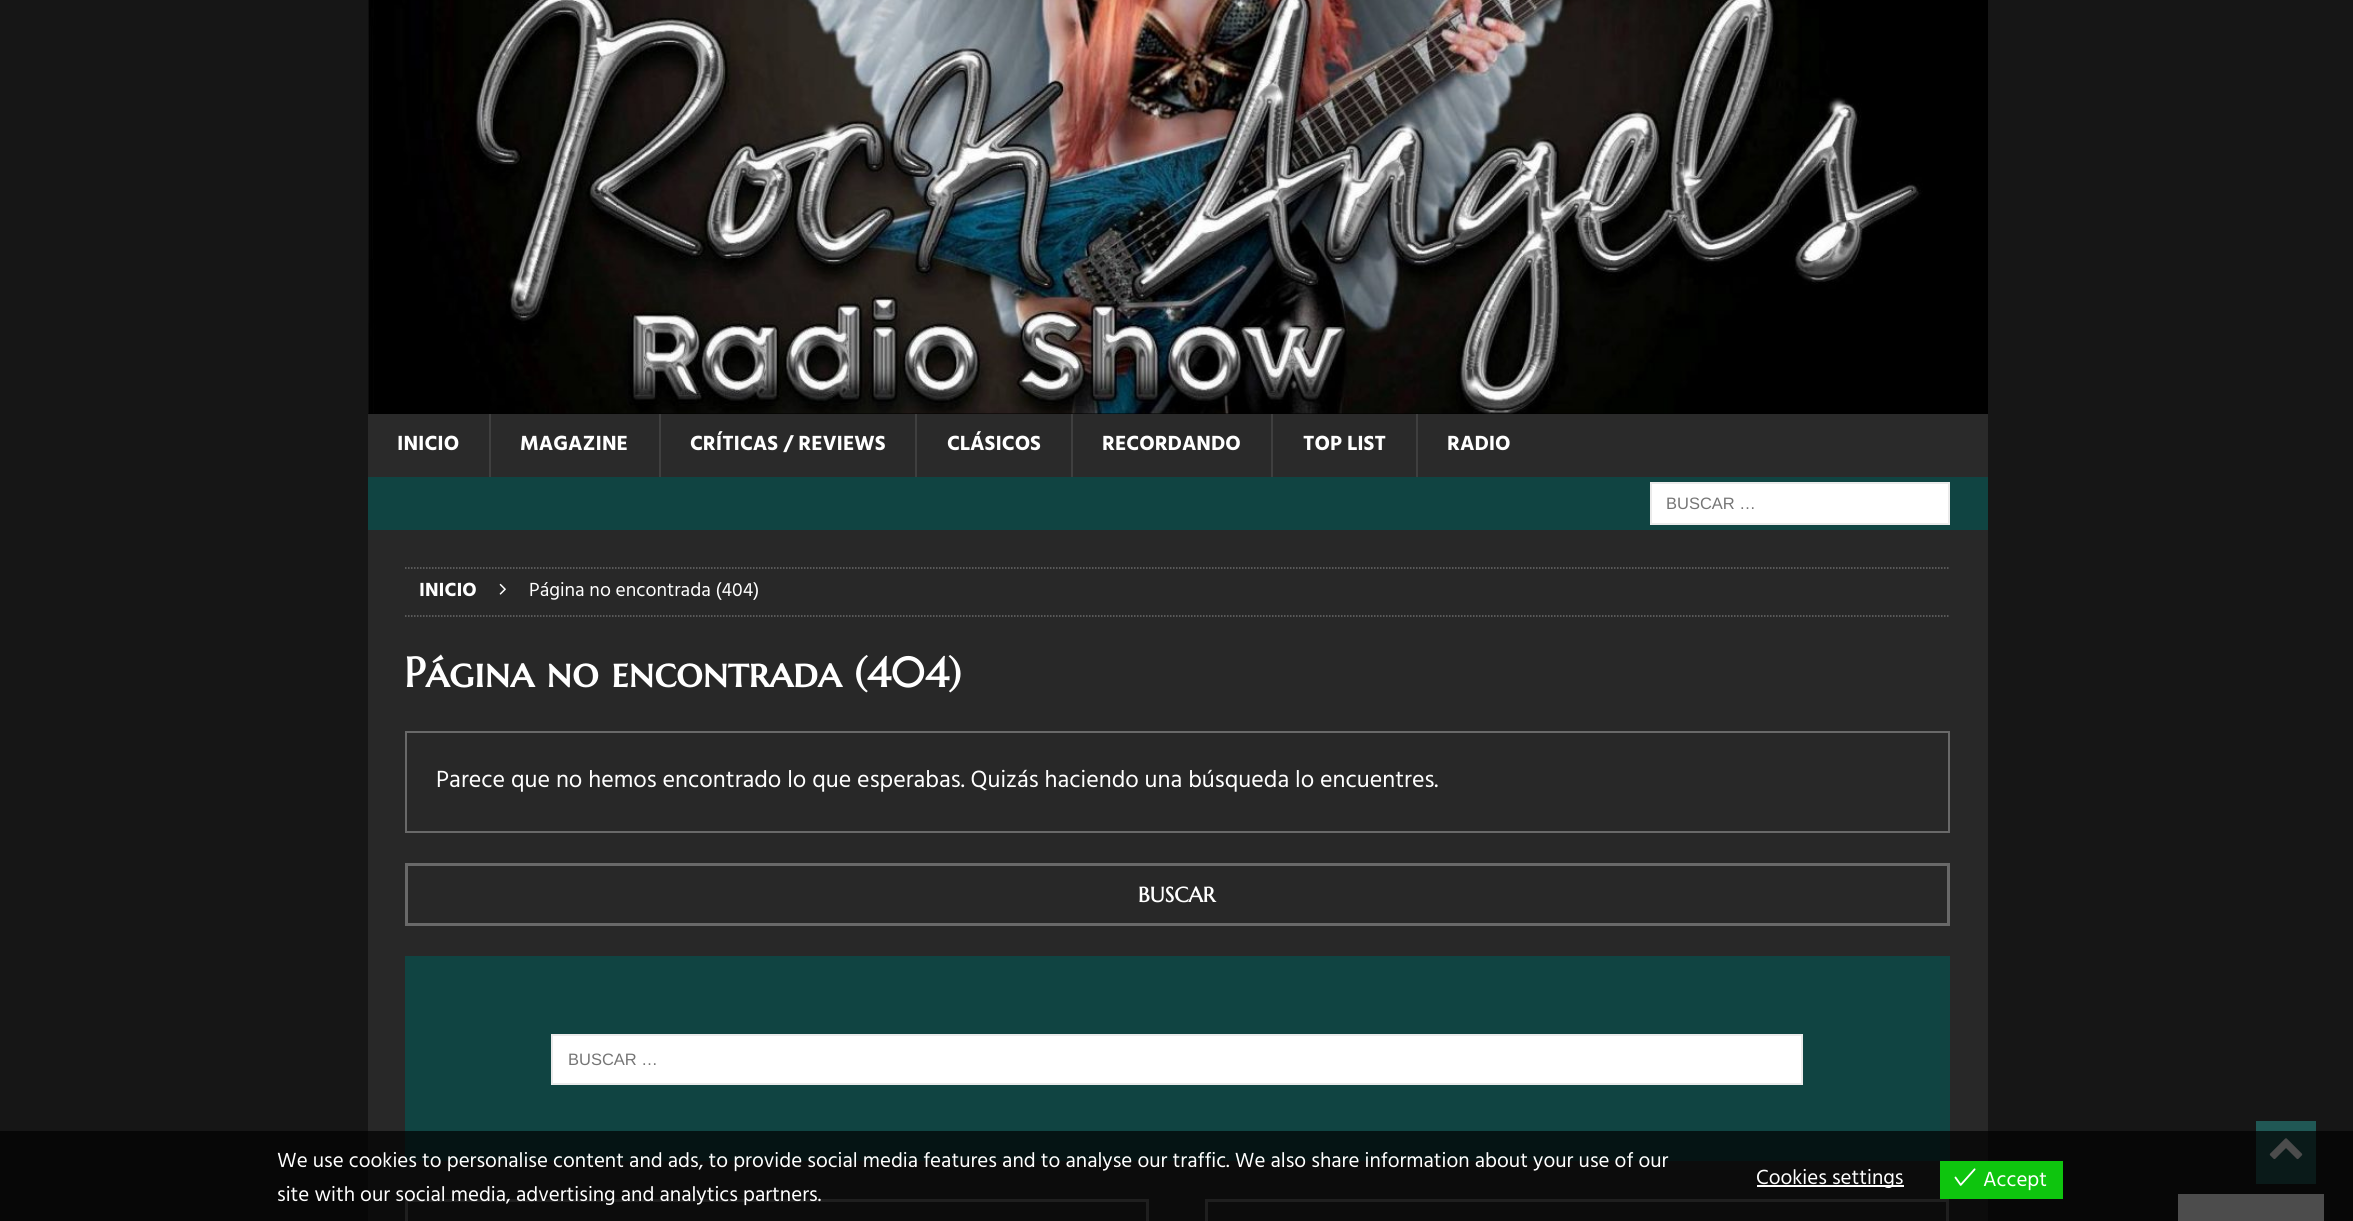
#include <cairo.h>
#include <math.h>
#include <stddef.h>


static void set_color(cairo_t *cr, unsigned color) {
    cairo_set_source_rgb(cr, (color >> 16) / 255.0, (color >> 8 & 255) / 255.0, (color & 255) / 255.0);
}

static void draw_text(cairo_t *cr, double x, double y, const char *s, const char *family, double size, int italic, int bold, unsigned color) {
    cairo_select_font_face(cr, family, italic ? CAIRO_FONT_SLANT_ITALIC : CAIRO_FONT_SLANT_NORMAL,
        bold ? CAIRO_FONT_WEIGHT_BOLD : CAIRO_FONT_WEIGHT_NORMAL);
    cairo_set_font_size(cr, size);
    set_color(cr, color);
    cairo_move_to(cr, x, y);
    cairo_show_text(cr, s);
}

static void fill_rect(cairo_t *cr, double x, double y, double w, double h, unsigned color) {
    set_color(cr, color);
    cairo_rectangle(cr, x, y, w, h);
    cairo_fill(cr);
}

static void draw_image(cairo_t *cr, const char *path, double x, double y, double w, double h) {
    cairo_surface_t *image = cairo_image_surface_create_from_png(path);
    cairo_save(cr);
    cairo_set_source_surface(cr, image, x, y);
    cairo_rectangle(cr, x, y, w, h);
    cairo_fill(cr);
    cairo_restore(cr);
    cairo_surface_destroy(image);
}

int main(void) {
    cairo_surface_t *surface = cairo_image_surface_create(CAIRO_FORMAT_RGB24, 2353, 1221);
    cairo_t *cr = cairo_create(surface);
    cairo_font_options_t *options = cairo_font_options_create();
    cairo_font_options_set_hint_metrics(options, CAIRO_HINT_METRICS_OFF);
    cairo_font_options_set_hint_style(options, CAIRO_HINT_STYLE_NONE);
    cairo_set_font_options(cr, options);
    cairo_set_miter_limit(cr, 4);
    set_color(cr, 0x161616);
    cairo_paint(cr);
    fill_rect(cr, 368, 0, 1620, 414, 0x000000);
    draw_image(cr, "assets/img1.png", 368, 0, 1555, 414);
    fill_rect(cr, 368, 414, 1620, 63, 0x2A2A2A);
    draw_text(cr, 397, 450, "INICIO", "Hind", 21, 0, 1, 0xFFFFFF);
    fill_rect(cr, 489, 414, 2, 63, 0x3F3F3F);
    draw_text(cr, 520, 450, "MAGAZINE", "Hind", 21, 0, 1, 0xFFFFFF);
    fill_rect(cr, 659, 414, 2, 63, 0x3F3F3F);
    draw_text(cr, 690, 450, "CRÍTICAS / REVIEWS", "Hind", 21, 0, 1, 0xFFFFFF);
    fill_rect(cr, 915, 414, 2, 63, 0x3F3F3F);
    draw_text(cr, 947, 450, "CLÁSICOS", "Hind", 21, 0, 1, 0xFFFFFF);
    fill_rect(cr, 1071, 414, 2, 63, 0x3F3F3F);
    draw_text(cr, 1102, 450, "RECORDANDO", "Hind", 21, 0, 1, 0xFFFFFF);
    fill_rect(cr, 1271, 414, 2, 63, 0x3F3F3F);
    draw_text(cr, 1303, 450, "TOP LIST", "Hind", 21, 0, 1, 0xFFFFFF);
    fill_rect(cr, 1416, 414, 2, 63, 0x3F3F3F);
    draw_text(cr, 1447, 450, "RADIO", "Hind", 21, 0, 1, 0xFFFFFF);
    fill_rect(cr, 368, 477, 1620, 53, 0x104442);
    set_color(cr, 0xFFFFFF);
    cairo_rectangle(cr, 1651, 483, 298, 41);
    cairo_fill_preserve(cr);
    set_color(cr, 0xEBEBEB);
    cairo_stroke(cr);
    draw_text(cr, 1666, 509, "BUSCAR …", "Liberation Sans", 16.5, 0, 0, 0x757575);
    fill_rect(cr, 368, 530, 1620, 691, 0x282828);
    cairo_new_path(cr);
    cairo_move_to(cr, 405, 568);
    cairo_line_to(cr, 1950, 568);
    set_color(cr, 0x696969);
    cairo_set_line_width(cr, 1.5);
    cairo_set_dash(cr, (double[]){1.5, 1.5}, 2, 0);
    cairo_stroke(cr);
    cairo_new_path(cr);
    cairo_move_to(cr, 405, 616);
    cairo_line_to(cr, 1950, 616);
    cairo_stroke(cr);
    draw_text(cr, 419, 596, "INICIO", "Hind", 19.5, 0, 1, 0xFFFFFF);
    draw_image(cr, "assets/img2.png", 499, 583, 7, 12);
    draw_text(cr, 529, 596, "Página no encontrada (404)", "Hind", 19.5, 0, 0, 0xFFFFFF);
    draw_text(cr, 404, 687, "Página no encontrada (404)", "Marcellus SC", 42, 0, 1, 0xFFFFFF);
    cairo_rectangle(cr, 406, 732, 1543, 100);
    set_color(cr, 0x696969);
    cairo_set_line_width(cr, 2);
    cairo_set_dash(cr, NULL, 0, 0);
    cairo_stroke(cr);
    draw_text(cr, 436, 787, "Parece que no hemos encontrado lo que esperabas. Quizás haciendo una búsqueda lo encuentres.", "Hind", 24, 0, 0, 0xFFFFFF);
    cairo_rectangle(cr, 406.5, 864.5, 1542, 60);
    set_color(cr, 0x696969);
    cairo_set_line_width(cr, 3);
    cairo_stroke(cr);
    draw_text(cr, 1138, 902, "BUSCAR", "Marcellus SC", 21, 0, 1, 0xFFFFFF);
    fill_rect(cr, 405, 956, 1545, 205, 0x104442);
    set_color(cr, 0xFFFFFF);
    cairo_rectangle(cr, 552, 1035, 1250, 49);
    cairo_fill_preserve(cr);
    set_color(cr, 0xEBEBEB);
    cairo_set_line_width(cr, 2);
    cairo_stroke(cr);
    draw_text(cr, 568, 1065, "BUSCAR …", "Liberation Sans", 16.5, 0, 0, 0x757575);
    cairo_rectangle(cr, 406.5, 1200.5, 741, 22);
    set_color(cr, 0x696969);
    cairo_set_line_width(cr, 3);
    cairo_stroke(cr);
    cairo_rectangle(cr, 1206.5, 1200.5, 741, 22);
    cairo_stroke(cr);
    fill_rect(cr, 2256, 1121, 60, 63, 0x205855);
    draw_image(cr, "assets/img3.png", 2269, 1138, 34, 22);
    fill_rect(cr, 2178, 1194, 146, 27, 0xFFFFFF);
    cairo_set_source_rgba(cr, 0, 0, 0, 0.7);
    cairo_rectangle(cr, 0, 1131, 2353, 90);
    cairo_fill(cr);
    draw_text(cr, 277, 1167, "We use cookies to personalise content and ads, to provide social media features and to analyse our traffic. We also share information about your use of our", "Hind", 21, 0, 0, 0xFFFFFF);
    draw_text(cr, 277, 1201, "site with our social media, advertising and analytics partners.", "Hind", 21, 0, 0, 0xFFFFFF);
    fill_rect(cr, 1757, 1185, 147, 2, 0xFFFFFF);
    draw_text(cr, 1756, 1184, "Cookies settings", "Hind", 21, 0, 0, 0xFFFFFF);
    fill_rect(cr, 1940, 1161, 123, 38, 0x0EC50E);
    draw_image(cr, "assets/img4.png", 1954, 1168, 22, 18);
    draw_text(cr, 1983, 1186, "Accept", "Hind", 21, 0, 0, 0xFFFFFF);
    cairo_surface_write_to_png(surface, "output.png");
    cairo_font_options_destroy(options);
    cairo_destroy(cr);
    cairo_surface_destroy(surface);
    return 0;
}
